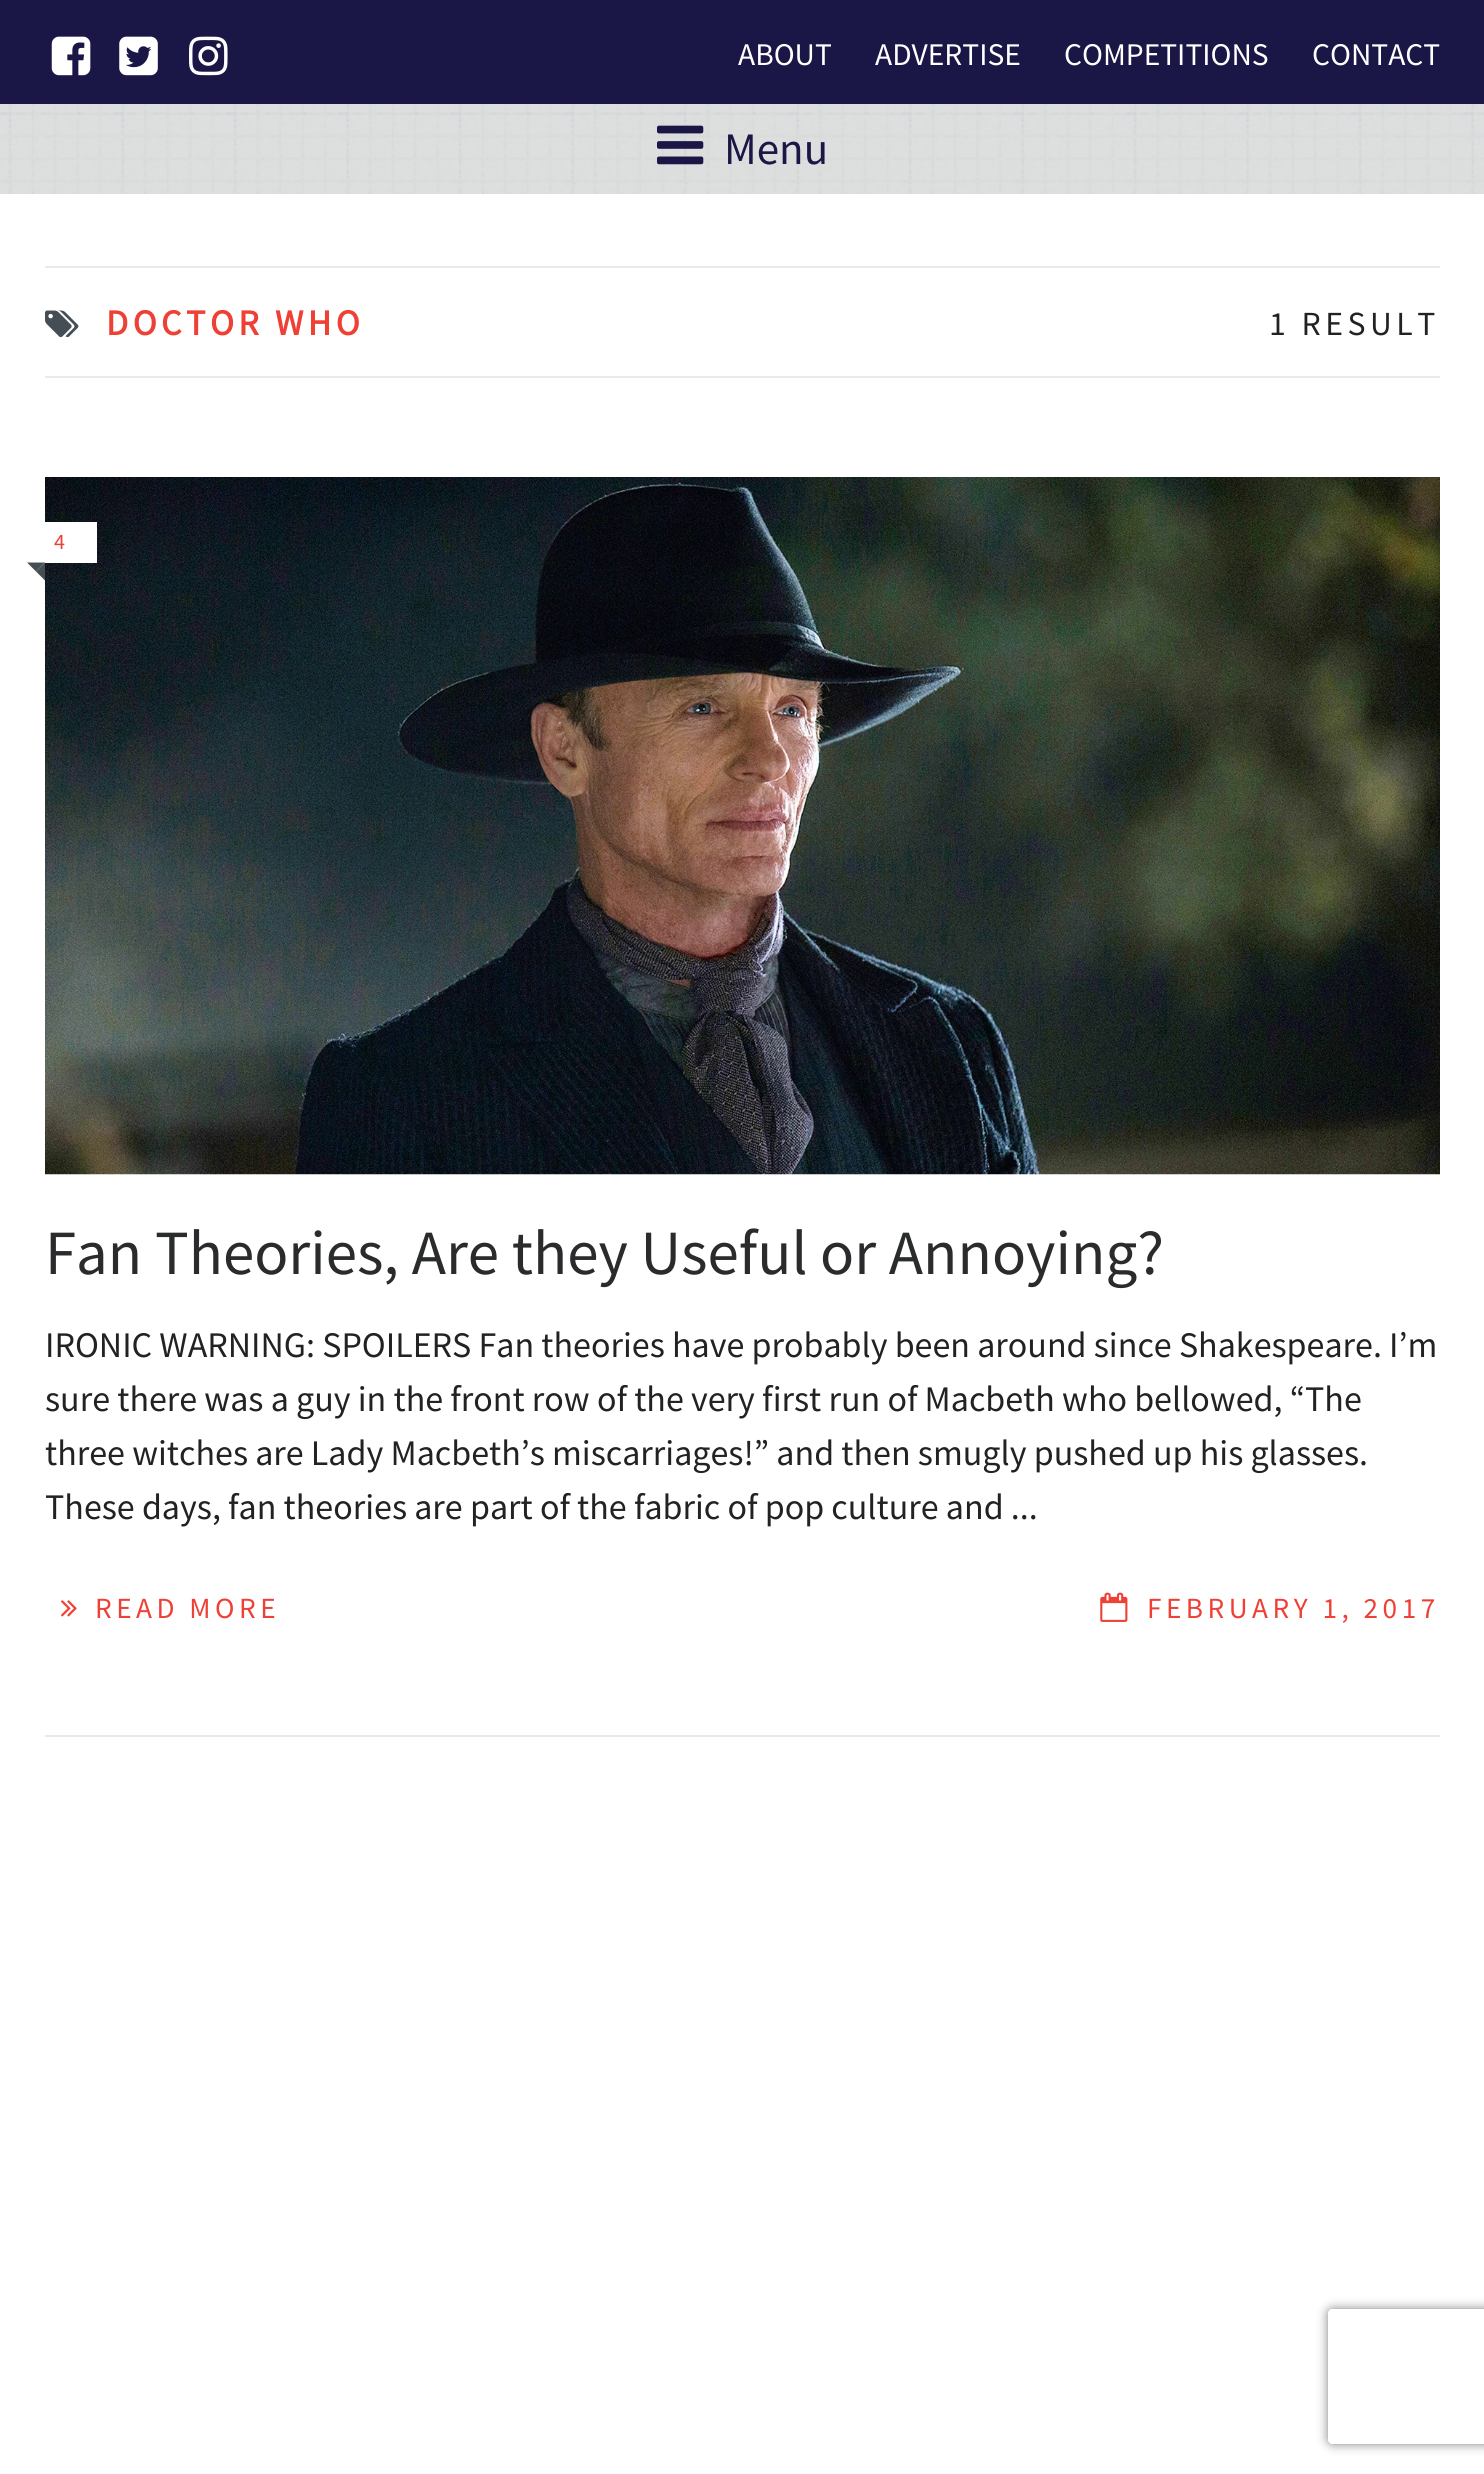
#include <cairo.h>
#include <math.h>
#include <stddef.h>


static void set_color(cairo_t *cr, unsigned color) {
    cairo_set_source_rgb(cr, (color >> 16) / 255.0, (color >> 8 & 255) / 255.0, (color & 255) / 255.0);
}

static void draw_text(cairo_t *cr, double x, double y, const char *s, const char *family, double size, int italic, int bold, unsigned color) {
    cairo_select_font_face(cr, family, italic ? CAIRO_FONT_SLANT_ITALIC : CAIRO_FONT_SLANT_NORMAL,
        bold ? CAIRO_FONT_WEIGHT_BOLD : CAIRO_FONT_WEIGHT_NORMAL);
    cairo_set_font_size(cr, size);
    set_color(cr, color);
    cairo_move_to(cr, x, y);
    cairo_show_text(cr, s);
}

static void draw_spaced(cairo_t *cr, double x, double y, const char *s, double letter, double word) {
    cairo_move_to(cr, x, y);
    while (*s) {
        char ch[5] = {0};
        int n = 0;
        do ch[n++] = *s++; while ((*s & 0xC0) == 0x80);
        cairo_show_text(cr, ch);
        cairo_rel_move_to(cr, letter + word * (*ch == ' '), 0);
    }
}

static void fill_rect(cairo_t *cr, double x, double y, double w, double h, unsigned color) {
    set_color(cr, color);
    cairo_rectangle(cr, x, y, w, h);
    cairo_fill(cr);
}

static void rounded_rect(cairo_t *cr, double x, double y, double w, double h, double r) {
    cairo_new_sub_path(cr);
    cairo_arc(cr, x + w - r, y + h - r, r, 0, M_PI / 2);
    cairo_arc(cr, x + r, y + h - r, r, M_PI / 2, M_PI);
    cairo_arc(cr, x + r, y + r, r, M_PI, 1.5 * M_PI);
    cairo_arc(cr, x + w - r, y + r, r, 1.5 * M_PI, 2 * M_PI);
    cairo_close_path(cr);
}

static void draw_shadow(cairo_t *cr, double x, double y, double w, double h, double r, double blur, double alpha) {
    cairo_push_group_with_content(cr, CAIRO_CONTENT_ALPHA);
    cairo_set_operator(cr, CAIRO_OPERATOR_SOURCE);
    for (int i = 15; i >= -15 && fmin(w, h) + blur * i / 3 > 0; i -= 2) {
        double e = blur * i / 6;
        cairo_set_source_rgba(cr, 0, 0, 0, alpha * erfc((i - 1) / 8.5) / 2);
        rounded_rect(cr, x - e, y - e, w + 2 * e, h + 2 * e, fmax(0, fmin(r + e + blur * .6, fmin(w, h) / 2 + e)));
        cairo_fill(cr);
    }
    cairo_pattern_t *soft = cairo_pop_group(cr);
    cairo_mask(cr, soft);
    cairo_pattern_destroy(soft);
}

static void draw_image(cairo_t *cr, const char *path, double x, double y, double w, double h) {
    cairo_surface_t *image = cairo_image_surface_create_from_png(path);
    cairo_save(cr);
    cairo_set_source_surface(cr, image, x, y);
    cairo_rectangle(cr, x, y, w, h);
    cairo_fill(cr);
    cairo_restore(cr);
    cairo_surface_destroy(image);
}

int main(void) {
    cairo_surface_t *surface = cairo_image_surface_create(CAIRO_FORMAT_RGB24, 1484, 2474);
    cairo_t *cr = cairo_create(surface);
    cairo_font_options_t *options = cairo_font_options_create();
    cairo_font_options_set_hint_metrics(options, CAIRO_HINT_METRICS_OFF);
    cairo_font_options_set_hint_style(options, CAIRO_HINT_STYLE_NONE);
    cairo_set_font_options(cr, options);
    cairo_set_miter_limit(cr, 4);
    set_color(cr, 0xFFFFFF);
    cairo_paint(cr);
    draw_image(cr, "assets/img1.png", 0, 104, 1484, 90);
    fill_rect(cr, 0, 0, 1484, 104, 0x1A1646);
    draw_image(cr, "assets/img2.png", 51, 36, 40, 40);
    draw_image(cr, "assets/img3.png", 119, 36, 39, 40);
    draw_image(cr, "assets/img4.png", 189, 36, 39, 40);
    draw_text(cr, 738, 65, "ABOUT", "Source Sans Pro", 31.5, 0, 0, 0xFFFFFF);
    draw_text(cr, 875, 65, "ADVERTISE", "Source Sans Pro", 31.5, 0, 0, 0xFFFFFF);
    draw_text(cr, 1064, 65, "COMPETITIONS", "Source Sans Pro", 31.5, 0, 0, 0xFFFFFF);
    draw_text(cr, 1312, 65, "CONTACT", "Source Sans Pro", 31.5, 0, 0, 0xFFFFFF);
    cairo_set_source_rgba(cr, 0.176, 0.176, 0.176, 0.15);
    cairo_rectangle(cr, 0, 104, 1484, 90);
    cairo_fill(cr);
    draw_image(cr, "assets/img5.png", 657, 125, 47, 40);
    draw_text(cr, 724, 164, "Menu", "Source Sans Pro", 45, 0, 0, 0x1A1646);
    fill_rect(cr, 45, 266, 1395, 2, 0xEAEAEA);
    fill_rect(cr, 45, 376, 1395, 2, 0xEAEAEA);
    draw_image(cr, "assets/img6.png", 45, 310, 34, 28);
    cairo_select_font_face(cr, "Source Sans Pro", CAIRO_FONT_SLANT_NORMAL, CAIRO_FONT_WEIGHT_BOLD);
    cairo_set_font_size(cr, 36);
    set_color(cr, 0xEF4036);
    draw_spaced(cr, 106, 335, "DOCTOR WHO", 4.5, 0);
    cairo_select_font_face(cr, "Source Sans Pro", CAIRO_FONT_SLANT_NORMAL, CAIRO_FONT_WEIGHT_NORMAL);
    cairo_set_font_size(cr, 33.75);
    set_color(cr, 0x222222);
    draw_spaced(cr, 1269, 335, "1 RESULT", 4.5, 0);
    fill_rect(cr, 45, 1735, 1395, 2, 0xEAEAEA);
    draw_image(cr, "assets/img7.png", 45, 477, 1395, 698);
    fill_rect(cr, 45, 522, 52, 41, 0xFFFFFF);
    draw_text(cr, 54, 549, "4", "Source Sans Pro", 22, 0, 0, 0xEF4036);
    set_color(cr, 0x454E54);
    cairo_new_path(cr);
    cairo_move_to(cr, 27, 562.5);
    cairo_line_to(cr, 45, 562.5);
    cairo_line_to(cr, 36, 571.5);
    cairo_close_path(cr);
    cairo_fill(cr);
    cairo_new_path(cr);
    cairo_move_to(cr, 45, 562.5);
    cairo_line_to(cr, 45, 580.5);
    cairo_line_to(cr, 36, 571.5);
    cairo_close_path(cr);
    cairo_fill(cr);
    draw_text(cr, 45, 1274, "Fan Theories, Are they Useful or Annoying?", "Source Sans Pro", 63, 0, 0, 0x292B2C);
    draw_text(cr, 45, 1357, "IRONIC WARNING: SPOILERS Fan theories have probably been around since Shakespeare. I’m", "Source Sans Pro", 36, 0, 0, 0x222222);
    draw_text(cr, 45, 1411, "sure there was a guy in the front row of the very first run of Macbeth who bellowed, “The", "Source Sans Pro", 36, 0, 0, 0x222222);
    draw_text(cr, 45, 1465, "three witches are Lady Macbeth’s miscarriages!” and then smugly pushed up his glasses.", "Source Sans Pro", 36, 0, 0, 0x222222);
    draw_text(cr, 45, 1519, "These days, fan theories are part of the fabric of pop culture and ...", "Source Sans Pro", 36, 0, 0, 0x222222);
    draw_image(cr, "assets/img8.png", 61, 1600, 16, 17);
    cairo_set_font_size(cr, 29.25);
    set_color(cr, 0xEF4036);
    draw_spaced(cr, 95, 1618, "READ MORE", 4.5, 0);
    draw_image(cr, "assets/img9.png", 1100, 1592, 28, 30);
    draw_spaced(cr, 1147, 1618, "FEBRUARY 1, 2017", 4.5, 0);
    cairo_save(cr);
    cairo_set_fill_rule(cr, CAIRO_FILL_RULE_EVEN_ODD);
    cairo_new_path(cr);
    cairo_move_to(cr, 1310, 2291);
    cairo_line_to(cr, 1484, 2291);
    cairo_line_to(cr, 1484, 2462);
    cairo_line_to(cr, 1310, 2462);
    cairo_close_path(cr);
    cairo_move_to(cr, 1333, 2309);
    cairo_line_to(cr, 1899, 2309);
    cairo_curve_to(cr, 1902, 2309, 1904, 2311, 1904, 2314);
    cairo_line_to(cr, 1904, 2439);
    cairo_curve_to(cr, 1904, 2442, 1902, 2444, 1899, 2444);
    cairo_line_to(cr, 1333, 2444);
    cairo_curve_to(cr, 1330, 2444, 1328, 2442, 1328, 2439);
    cairo_line_to(cr, 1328, 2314);
    cairo_curve_to(cr, 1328, 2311, 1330, 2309, 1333, 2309);
    cairo_close_path(cr);
    cairo_clip(cr);
    set_color(cr, 0x808080);
    draw_shadow(cr, 1328, 2309, 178, 135, 5, 5.5, 1);
    cairo_restore(cr);
    cairo_surface_write_to_png(surface, "output.png");
    cairo_font_options_destroy(options);
    cairo_destroy(cr);
    cairo_surface_destroy(surface);
    return 0;
}
